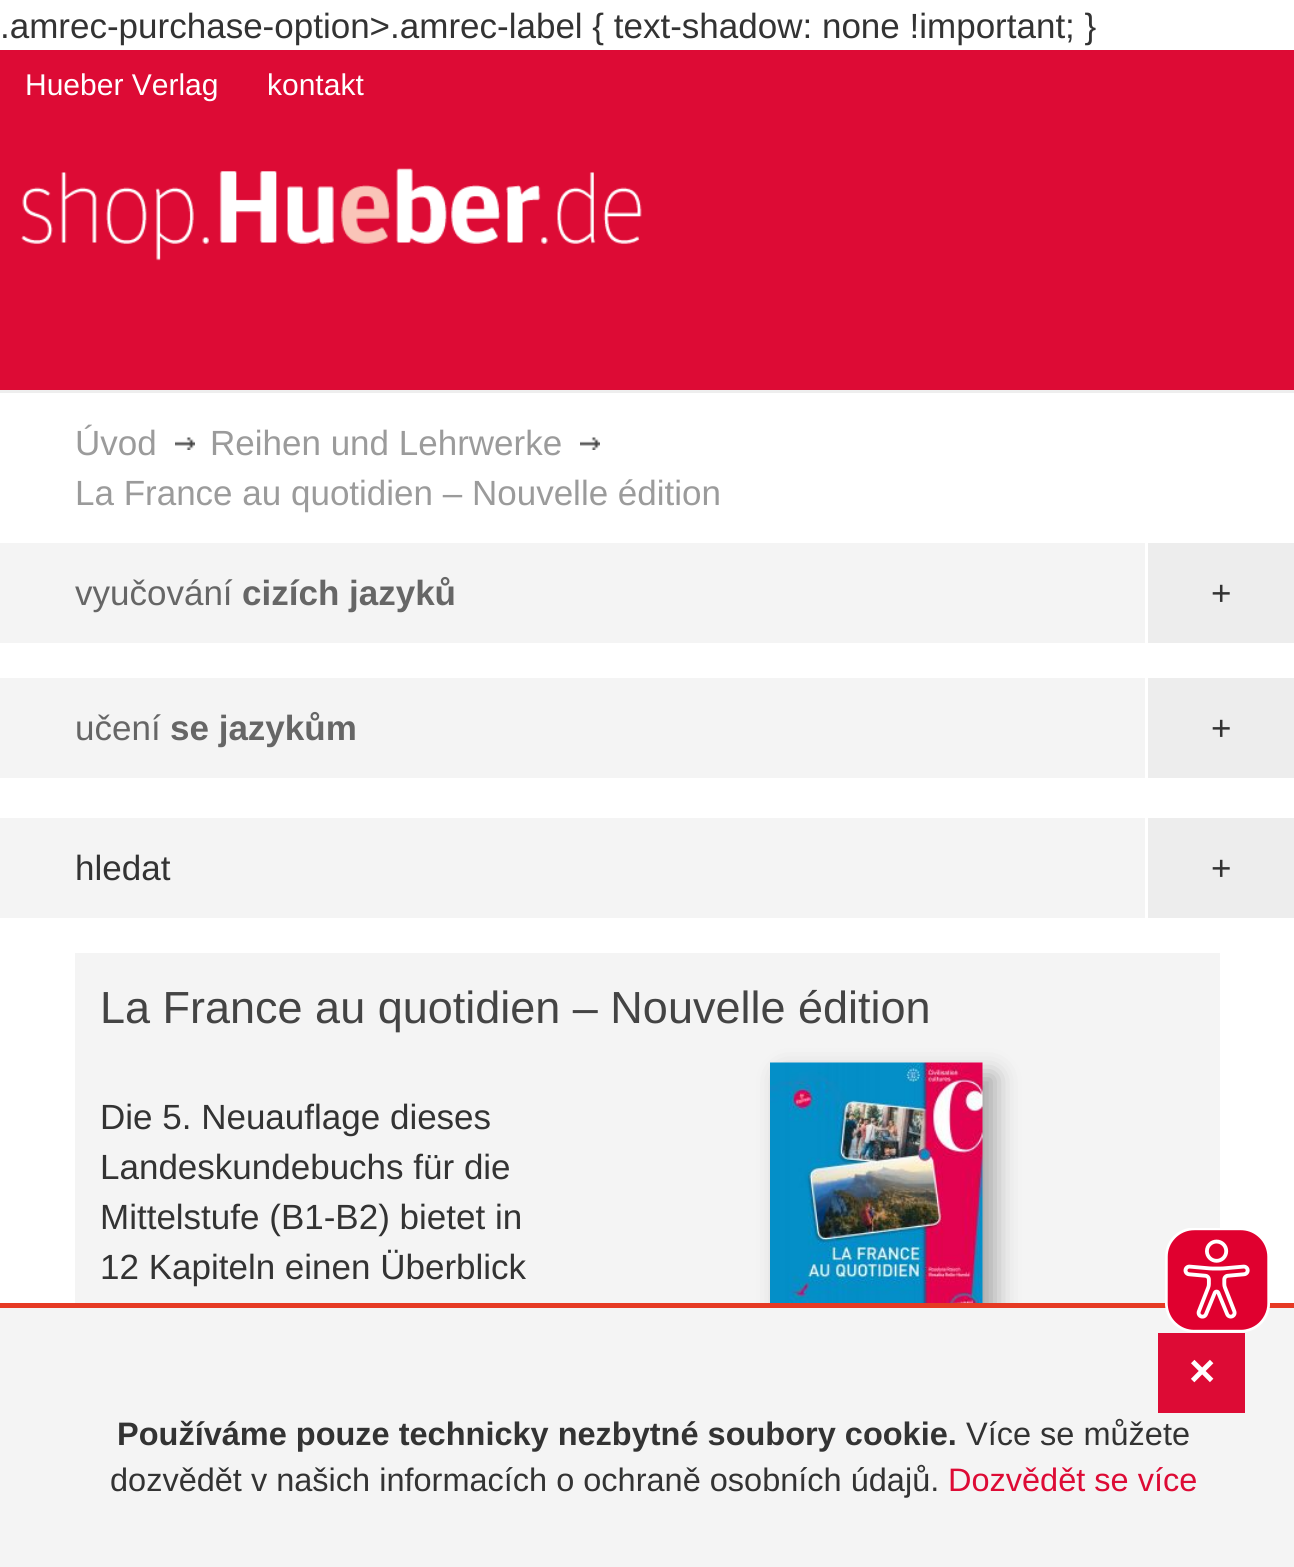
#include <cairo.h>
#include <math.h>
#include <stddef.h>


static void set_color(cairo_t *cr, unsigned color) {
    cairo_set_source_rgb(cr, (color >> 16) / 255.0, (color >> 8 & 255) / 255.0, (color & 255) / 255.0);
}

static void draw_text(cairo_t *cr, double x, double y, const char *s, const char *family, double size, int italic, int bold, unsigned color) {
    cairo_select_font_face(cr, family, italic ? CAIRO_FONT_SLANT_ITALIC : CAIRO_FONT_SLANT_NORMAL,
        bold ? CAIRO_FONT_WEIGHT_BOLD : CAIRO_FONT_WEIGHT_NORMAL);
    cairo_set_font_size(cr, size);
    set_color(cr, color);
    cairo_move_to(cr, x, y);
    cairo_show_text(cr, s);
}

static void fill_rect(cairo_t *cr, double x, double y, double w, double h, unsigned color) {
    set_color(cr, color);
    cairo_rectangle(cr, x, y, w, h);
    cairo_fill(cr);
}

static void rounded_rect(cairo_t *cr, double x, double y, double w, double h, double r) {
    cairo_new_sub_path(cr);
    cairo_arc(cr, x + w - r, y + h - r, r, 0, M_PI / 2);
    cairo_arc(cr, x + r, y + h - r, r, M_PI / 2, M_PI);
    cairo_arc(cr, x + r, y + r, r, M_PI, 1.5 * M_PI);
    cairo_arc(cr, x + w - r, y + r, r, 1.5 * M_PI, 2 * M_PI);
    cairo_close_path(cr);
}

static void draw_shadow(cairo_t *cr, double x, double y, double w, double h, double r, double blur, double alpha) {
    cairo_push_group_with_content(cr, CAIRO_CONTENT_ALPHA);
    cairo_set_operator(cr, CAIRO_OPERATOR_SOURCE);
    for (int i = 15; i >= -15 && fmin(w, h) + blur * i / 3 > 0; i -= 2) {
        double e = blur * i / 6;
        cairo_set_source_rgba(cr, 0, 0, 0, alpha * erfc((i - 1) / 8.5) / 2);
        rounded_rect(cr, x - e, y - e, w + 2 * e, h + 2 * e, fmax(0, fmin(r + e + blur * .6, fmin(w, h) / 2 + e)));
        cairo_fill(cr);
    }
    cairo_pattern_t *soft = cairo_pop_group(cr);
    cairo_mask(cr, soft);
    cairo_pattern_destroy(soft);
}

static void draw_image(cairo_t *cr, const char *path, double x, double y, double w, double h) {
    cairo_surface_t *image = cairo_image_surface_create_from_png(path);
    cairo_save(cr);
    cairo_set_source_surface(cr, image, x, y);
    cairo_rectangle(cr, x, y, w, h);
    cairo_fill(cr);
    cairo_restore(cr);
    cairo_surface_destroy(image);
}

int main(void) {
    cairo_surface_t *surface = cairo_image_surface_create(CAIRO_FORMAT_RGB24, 1294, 1567);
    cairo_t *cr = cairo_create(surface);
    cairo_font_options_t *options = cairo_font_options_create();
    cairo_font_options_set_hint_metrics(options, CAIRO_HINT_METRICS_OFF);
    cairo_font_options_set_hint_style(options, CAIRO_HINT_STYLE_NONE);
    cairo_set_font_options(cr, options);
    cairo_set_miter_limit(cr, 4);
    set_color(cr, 0xFFFFFF);
    cairo_paint(cr);
    draw_text(cr, 0, 38, ".amrec-purchase-option>.amrec-label { text-shadow: none !important; }", "Liberation Sans", 35, 0, 0, 0x333333);
    fill_rect(cr, 0, 50, 1294, 340, 0xDD0B35);
    fill_rect(cr, 0, 390, 1294, 3, 0xEEEEEE);
    draw_text(cr, 25, 95, "Hueber Verlag", "Liberation Sans", 30, 0, 0, 0xFFFFFF);
    draw_text(cr, 267, 95, "kontakt", "Liberation Sans", 30, 0, 0, 0xFFFFFF);
    draw_image(cr, "assets/img1.png", 21, 168, 621, 93);
    draw_text(cr, 75, 455, "Úvod", "Liberation Sans", 35, 0, 0, 0x9B9B9B);
    draw_image(cr, "assets/img2.png", 175, 437, 20, 13);
    draw_text(cr, 210, 455, "Reihen und Lehrwerke", "Liberation Sans", 35, 0, 0, 0x9B9B9B);
    draw_image(cr, "assets/img3.png", 580, 437, 20, 13);
    draw_text(cr, 75, 505, "La France au quotidien – Nouvelle édition", "Liberation Sans", 35, 0, 0, 0x9B9B9B);
    fill_rect(cr, 0, 543, 1145, 235, 0xF4F4F4);
    fill_rect(cr, 0, 643, 1145, 35, 0xFFFFFF);
    draw_text(cr, 75, 605, "vyučování", "Liberation Sans", 35, 0, 0, 0x666666);
    draw_text(cr, 242, 605, "cizích jazyků", "Liberation Sans", 35, 0, 1, 0x666666);
    fill_rect(cr, 1148, 543, 146, 100, 0xEDEDED);
    draw_text(cr, 1211, 605, "+", "Liberation Sans", 35, 0, 0, 0x333333);
    draw_text(cr, 75, 740, "učení", "Liberation Sans", 35, 0, 0, 0x666666);
    draw_text(cr, 170, 740, "se jazykům", "Liberation Sans", 35, 0, 1, 0x666666);
    fill_rect(cr, 1148, 678, 146, 100, 0xEDEDED);
    draw_text(cr, 1211, 740, "+", "Liberation Sans", 35, 0, 0, 0x333333);
    fill_rect(cr, 0, 818, 1145, 100, 0xF4F4F4);
    draw_text(cr, 75, 880, "hledat", "Liberation Sans", 35, 0, 0, 0x333333);
    fill_rect(cr, 1148, 818, 146, 100, 0xEDEDED);
    draw_text(cr, 1211, 880, "+", "Liberation Sans", 35, 0, 0, 0x333333);
    fill_rect(cr, 75, 953, 1145, 350, 0xF4F4F4);
    draw_text(cr, 100, 1023, "La France au quotidien – Nouvelle édition", "Liberation Sans", 45, 0, 0, 0x444444);
    set_color(cr, 0x000000);
    draw_shadow(cr, 783, 1075, 212, 308, 0, 12.5, 0.33);
    draw_image(cr, "assets/img4.png", 770, 1062, 213, 241);
    draw_text(cr, 100, 1129, "Die 5. Neuauflage dieses", "Liberation Sans", 35, 0, 0, 0x333333);
    draw_text(cr, 100, 1179, "Landeskundebuchs für die", "Liberation Sans", 35, 0, 0, 0x333333);
    draw_text(cr, 100, 1229, "Mittelstufe (B1-B2) bietet in", "Liberation Sans", 35, 0, 0, 0x333333);
    draw_text(cr, 100, 1279, "12 Kapiteln einen Überblick", "Liberation Sans", 35, 0, 0, 0x333333);
    fill_rect(cr, 0, 1308, 1294, 259, 0xF4F4F4);
    fill_rect(cr, 0, 1303, 1294, 5, 0xE63A24);
    draw_image(cr, "assets/img5.png", 1165, 1228, 105, 105);
    fill_rect(cr, 1158, 1333, 87, 80, 0xDD0B35);
    draw_text(cr, 1189, 1386, "×", "Liberation Sans", 45, 0, 1, 0xFFFFFF);
    draw_text(cr, 117, 1445, "Používáme pouze technicky nezbytné soubory cookie.", "Liberation Sans", 32.5, 0, 1, 0x333333);
    draw_text(cr, 966, 1445, "Více se můžete", "Liberation Sans", 32.5, 0, 0, 0x333333);
    draw_text(cr, 110, 1491, "dozvědět v našich informacích o ochraně osobních údajů.", "Liberation Sans", 32.5, 0, 0, 0x333333);
    draw_text(cr, 948, 1491, "Dozvědět se více", "Liberation Sans", 32.5, 0, 0, 0xDD0B35);
    cairo_surface_write_to_png(surface, "output.png");
    cairo_font_options_destroy(options);
    cairo_destroy(cr);
    cairo_surface_destroy(surface);
    return 0;
}
